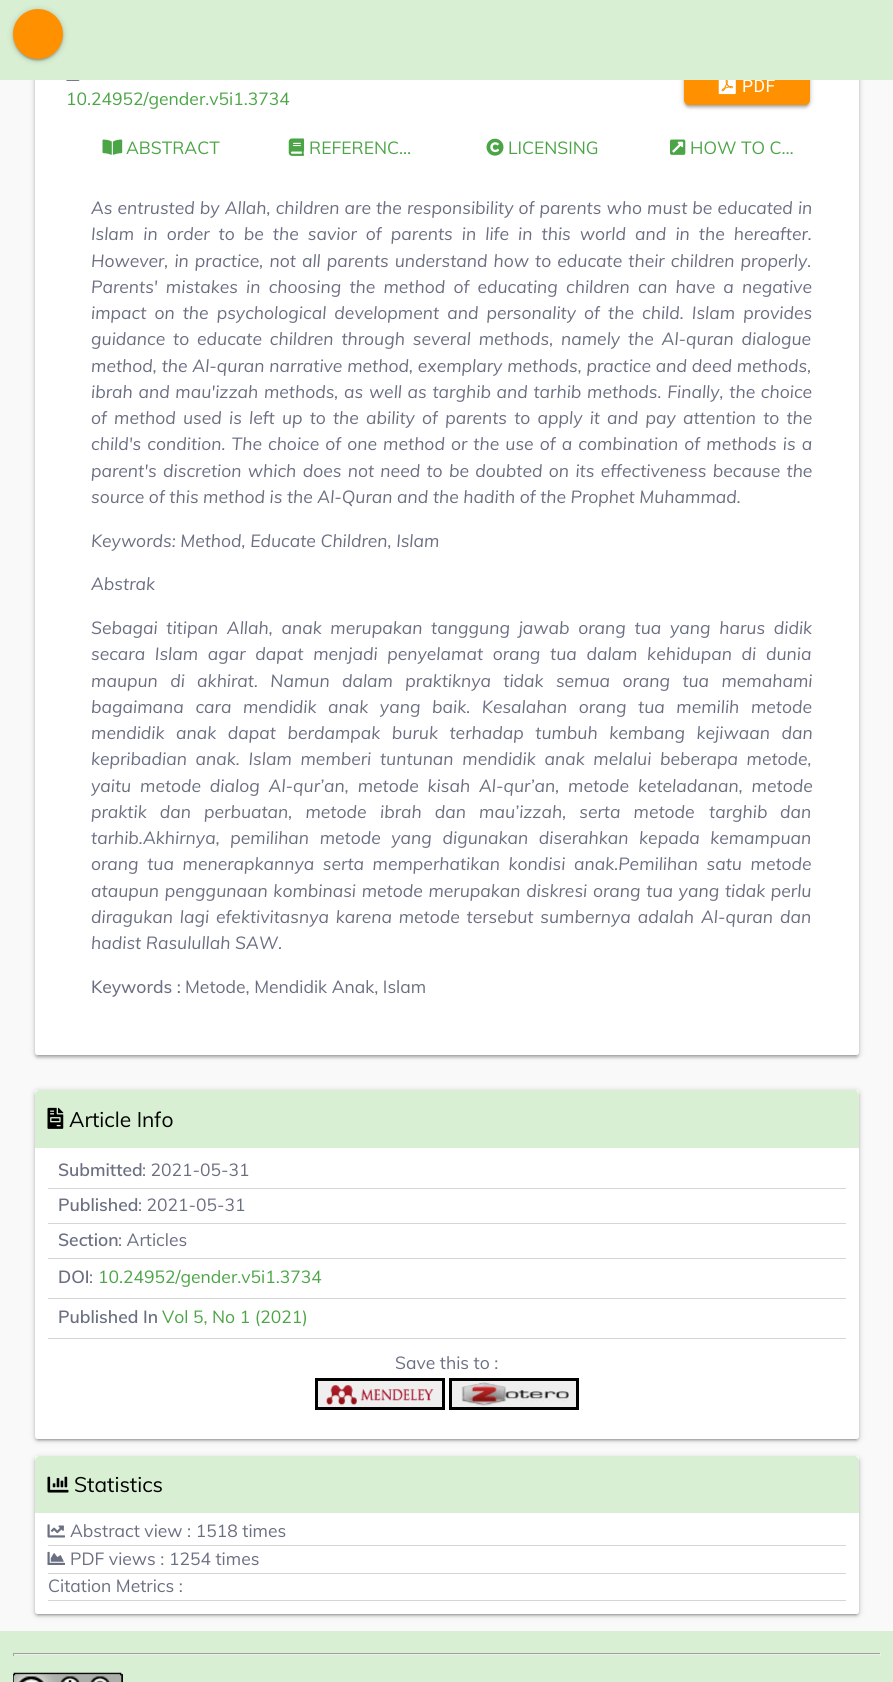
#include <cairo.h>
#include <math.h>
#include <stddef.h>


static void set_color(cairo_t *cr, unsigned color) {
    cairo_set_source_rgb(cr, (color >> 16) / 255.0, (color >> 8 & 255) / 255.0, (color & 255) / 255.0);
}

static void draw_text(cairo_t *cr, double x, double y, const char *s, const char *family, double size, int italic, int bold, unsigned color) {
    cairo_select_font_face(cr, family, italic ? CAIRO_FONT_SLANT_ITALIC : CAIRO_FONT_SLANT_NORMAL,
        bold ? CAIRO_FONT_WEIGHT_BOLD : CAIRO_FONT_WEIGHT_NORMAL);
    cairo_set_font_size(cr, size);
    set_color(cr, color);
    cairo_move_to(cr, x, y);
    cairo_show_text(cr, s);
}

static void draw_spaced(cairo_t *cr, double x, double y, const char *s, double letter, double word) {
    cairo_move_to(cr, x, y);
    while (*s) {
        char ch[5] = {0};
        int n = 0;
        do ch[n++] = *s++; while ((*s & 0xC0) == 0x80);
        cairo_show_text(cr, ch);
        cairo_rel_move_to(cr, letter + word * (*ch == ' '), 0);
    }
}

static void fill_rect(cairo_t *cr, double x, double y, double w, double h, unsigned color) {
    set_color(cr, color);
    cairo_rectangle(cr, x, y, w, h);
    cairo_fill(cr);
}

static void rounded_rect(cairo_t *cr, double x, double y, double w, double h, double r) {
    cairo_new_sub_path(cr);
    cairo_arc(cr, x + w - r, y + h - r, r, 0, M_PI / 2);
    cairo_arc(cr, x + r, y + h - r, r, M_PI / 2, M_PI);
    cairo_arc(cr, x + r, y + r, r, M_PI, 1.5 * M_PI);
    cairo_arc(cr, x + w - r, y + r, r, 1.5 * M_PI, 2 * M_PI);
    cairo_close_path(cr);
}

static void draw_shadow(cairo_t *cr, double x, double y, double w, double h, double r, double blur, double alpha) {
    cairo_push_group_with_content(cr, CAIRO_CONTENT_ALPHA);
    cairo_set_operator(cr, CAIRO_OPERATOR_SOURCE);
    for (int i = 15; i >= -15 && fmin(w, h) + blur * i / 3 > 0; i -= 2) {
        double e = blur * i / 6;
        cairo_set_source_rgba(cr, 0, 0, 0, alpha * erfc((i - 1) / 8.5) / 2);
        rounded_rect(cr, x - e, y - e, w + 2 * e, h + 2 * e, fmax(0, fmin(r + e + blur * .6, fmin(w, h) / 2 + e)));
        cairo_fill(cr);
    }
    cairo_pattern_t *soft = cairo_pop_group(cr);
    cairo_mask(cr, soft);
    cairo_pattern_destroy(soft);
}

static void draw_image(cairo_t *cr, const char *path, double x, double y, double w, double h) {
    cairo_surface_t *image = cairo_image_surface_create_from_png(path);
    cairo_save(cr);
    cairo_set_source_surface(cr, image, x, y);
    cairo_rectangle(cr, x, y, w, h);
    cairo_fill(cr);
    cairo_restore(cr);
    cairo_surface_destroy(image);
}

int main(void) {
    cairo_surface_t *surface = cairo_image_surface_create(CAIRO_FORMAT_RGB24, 893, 1682);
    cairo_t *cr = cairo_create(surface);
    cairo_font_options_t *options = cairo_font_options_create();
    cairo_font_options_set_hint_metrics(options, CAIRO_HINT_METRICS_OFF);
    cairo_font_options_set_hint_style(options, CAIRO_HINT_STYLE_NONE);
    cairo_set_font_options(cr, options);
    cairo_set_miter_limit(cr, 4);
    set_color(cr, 0xF9F9F9);
    cairo_paint(cr);
    set_color(cr, 0x000000);
    draw_shadow(cr, 35, -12, 824, 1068, 2.5, 3, 0.2);
    draw_shadow(cr, 38, -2, 818, 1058, 0, 0.5, 0.12);
    draw_shadow(cr, 35, -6, 824, 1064, 2.5, 1, 0.14);
    set_color(cr, 0xFFFFFF);
    rounded_rect(cr, 35, -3, 824, 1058, 2.5);
    cairo_fill(cr);
    set_color(cr, 0x000000);
    draw_shadow(cr, 684, 61, 126, 45, 5, 3, 0.2);
    draw_shadow(cr, 686, 66, 122, 40, 2.5, 0.5, 0.12);
    draw_shadow(cr, 684, 63, 126, 45, 5, 1, 0.14);
    set_color(cr, 0xFF9100);
    rounded_rect(cr, 684, 60, 126, 45, 5);
    cairo_fill(cr);
    cairo_select_font_face(cr, "Roboto", CAIRO_FONT_SLANT_NORMAL, CAIRO_FONT_WEIGHT_NORMAL);
    cairo_set_font_size(cr, 17.5);
    set_color(cr, 0xFFFFFF);
    draw_spaced(cr, 742, 92, "PDF", 0.5, 0);
    fill_rect(cr, 0, 0, 893, 80, 0xD8EFD3);
    set_color(cr, 0x000000);
    draw_shadow(cr, 13, 10, 50, 50, 25, 3, 0.2);
    draw_shadow(cr, 15, 15, 45, 45, 22.5, 0.5, 0.12);
    draw_shadow(cr, 13, 11, 50, 50, 25, 1, 0.14);
    set_color(cr, 0xFF9100);
    cairo_arc(cr, 38, 34, 25, 0, 2 * M_PI);
    cairo_fill(cr);
    draw_image(cr, "assets/img1.png", 718, 80, 18, 15);
    draw_image(cr, "assets/img2.png", 66, 80, 14, 1);
    draw_text(cr, 66, 105, "10.24952/gender.v5i1.3734", "Muli", 17.5, 0, 0, 0x4BA546);
    draw_image(cr, "assets/img3.png", 102, 139, 21, 16);
    draw_text(cr, 126, 154, "ABSTRACT", "Muli", 17.5, 0, 0, 0x4BA546);
    draw_image(cr, "assets/img4.png", 288, 138, 17, 18);
    draw_text(cr, 309, 154, "REFERENC…", "Muli", 17.5, 0, 0, 0x4BA546);
    draw_image(cr, "assets/img5.png", 486, 138, 18, 18);
    draw_text(cr, 508, 154, "LICENSING", "Muli", 17.5, 0, 0, 0x4BA546);
    draw_image(cr, "assets/img6.png", 670, 139, 16, 16);
    draw_text(cr, 690, 154, "HOW TO C…", "Muli", 17.5, 0, 0, 0x4BA546);
    cairo_select_font_face(cr, "Muli", CAIRO_FONT_SLANT_ITALIC, CAIRO_FONT_WEIGHT_NORMAL);
    set_color(cr, 0x6B6F82);
    draw_spaced(cr, 91, 214, "As entrusted by Allah, children are the responsibility of parents who must be educated in", 0, 0.5);
    draw_spaced(cr, 91, 240, "Islam in order to be the savior of parents in life in this world and in the hereafter.", 0, 4.5);
    draw_spaced(cr, 91, 267, "However, in practice, not all parents understand how to educate their children properly.", 0, 1.5);
    draw_spaced(cr, 91, 293, "Parents' mistakes in choosing the method of educating children can have a negative", 0, 3.6);
    draw_spaced(cr, 91, 319, "impact on the psychological development and personality of the child. Islam provides", 0, 3.5);
    draw_spaced(cr, 91, 345, "guidance to educate children through several methods, namely the Al-quran dialogue", 0, 3.25);
    draw_spaced(cr, 91, 372, "method, the Al-quran narrative method, exemplary methods, practice and deed methods,", 0, 0.25);
    draw_spaced(cr, 91, 398, "ibrah and mau'izzah methods, as well as targhib and tarhib methods. Finally, the choice", 0, 1.1);
    draw_spaced(cr, 91, 424, "of method used is left up to the ability of parents to apply it and pay attention to the", 0, 2.6);
    draw_spaced(cr, 91, 450, "child's condition. The choice of one method or the use of a combination of methods is a", 0, 1.5);
    draw_spaced(cr, 91, 477, "parent's discretion which does not need to be doubted on its effectiveness because the", 0, 1.75);
    draw_text(cr, 91, 503, "source of this method is the Al-Quran and the hadith of the Prophet Muhammad.", "Muli", 17.5, 1, 0, 0x6B6F82);
    draw_text(cr, 91, 547, "Keywords: Method, Educate Children, Islam", "Muli", 17.5, 1, 0, 0x6B6F82);
    draw_text(cr, 91, 590, "Abstrak", "Muli", 17.5, 1, 0, 0x6B6F82);
    draw_spaced(cr, 91, 634, "Sebagai titipan Allah, anak merupakan tanggung jawab orang tua yang harus didik", 0, 4.1);
    draw_spaced(cr, 91, 660, "secara Islam agar dapat menjadi penyelamat orang tua dalam kehidupan di dunia", 0, 5.1);
    draw_spaced(cr, 91, 687, "maupun di akhirat. Namun dalam praktiknya tidak semua orang tua memahami", 0, 7.75);
    draw_spaced(cr, 91, 713, "bagaimana cara mendidik anak yang baik. Kesalahan orang tua memilih metode", 0, 7);
    draw_spaced(cr, 91, 739, "mendidik anak dapat berdampak buruk terhadap tumbuh kembang kejiwaan dan", 0, 7);
    draw_spaced(cr, 91, 765, "kepribadian anak. Islam memberi tuntunan mendidik anak melalui beberapa metode,", 0, 4.1);
    draw_spaced(cr, 91, 792, "yaitu metode dialog Al-qur’an, metode kisah Al-qur’an, metode keteladanan, metode", 0, 4.25);
    draw_spaced(cr, 91, 818, "praktik dan perbuatan, metode", 0, 8.5);
    draw_spaced(cr, 380, 818, "ibrah dan mau’izzah, serta metode", 0, 8.5);
    draw_text(cr, 709, 818, "targhib", "Muli", 17.5, 1, 0, 0x6B6F82);
    draw_text(cr, 780, 818, "dan", "Muli", 17.5, 1, 0, 0x6B6F82);
    draw_text(cr, 91, 844, "tarhib.", "Muli", 17.5, 1, 0, 0x6B6F82);
    draw_spaced(cr, 143, 844, "Akhirnya, pemilihan metode yang digunakan diserahkan kepada kemampuan", 0, 6);
    draw_spaced(cr, 91, 870, "orang tua menerapkannya serta memperhatikan kondisi anak.Pemilihan satu metode", 0, 4);
    draw_spaced(cr, 91, 897, "ataupun penggunaan kombinasi metode merupakan diskresi orang tua yang tidak perlu", 0, 1.1);
    draw_spaced(cr, 91, 923, "diragukan lagi efektivitasnya karena metode tersebut sumbernya adalah Al-quran dan", 0, 2.25);
    draw_text(cr, 91, 949, "hadist Rasulullah SAW.", "Muli", 17.5, 1, 0, 0x6B6F82);
    draw_text(cr, 91, 993, "Keywords :", "Muli Medium", 17.5, 0, 0, 0x6B6F82);
    draw_text(cr, 185, 993, "Metode, Mendidik Anak, Islam", "Muli", 17.5, 0, 0, 0x6B6F82);
    set_color(cr, 0x000000);
    draw_shadow(cr, 35, 1091, 824, 349, 2.5, 3, 0.2);
    draw_shadow(cr, 38, 1096, 818, 344, 0, 0.5, 0.12);
    draw_shadow(cr, 35, 1093, 824, 348, 2.5, 1, 0.14);
    set_color(cr, 0xFFFFFF);
    rounded_rect(cr, 35, 1090, 824, 349, 2.5);
    cairo_fill(cr);
    set_color(cr, 0xD8EFD3);
    cairo_new_path(cr);
    cairo_move_to(cr, 40, 1090);
    cairo_line_to(cr, 854, 1090);
    cairo_curve_to(cr, 857, 1090, 859, 1092, 859, 1095);
    cairo_line_to(cr, 859, 1148);
    cairo_line_to(cr, 35, 1148);
    cairo_line_to(cr, 35, 1095);
    cairo_curve_to(cr, 35, 1092, 37, 1090, 40, 1090);
    cairo_close_path(cr);
    cairo_fill(cr);
    draw_image(cr, "assets/img7.png", 47, 1107, 17, 22);
    draw_text(cr, 69, 1127, "Article Info", "Muli", 21, 0, 0, 0x000000);
    fill_rect(cr, 48, 1188, 798, 1, 0xD5D5D5);
    draw_text(cr, 58, 1176, "Submitted", "Muli SemiBold", 17.5, 0, 0, 0x6B6F82);
    draw_text(cr, 142, 1176, ": 2021-05-31", "Muli", 17.5, 0, 0, 0x6B6F82);
    fill_rect(cr, 48, 1223, 798, 1, 0xD5D5D5);
    draw_text(cr, 58, 1211, "Published", "Muli SemiBold", 17.5, 0, 0, 0x6B6F82);
    draw_text(cr, 138, 1211, ": 2021-05-31", "Muli", 17.5, 0, 0, 0x6B6F82);
    fill_rect(cr, 48, 1258, 798, 1, 0xD5D5D5);
    draw_text(cr, 58, 1246, "Section", "Muli SemiBold", 17.5, 0, 0, 0x6B6F82);
    draw_text(cr, 118, 1246, ": Articles", "Muli", 17.5, 0, 0, 0x6B6F82);
    fill_rect(cr, 48, 1298, 798, 1, 0xD5D5D5);
    draw_text(cr, 58, 1283, "DOI", "Muli SemiBold", 17.5, 0, 0, 0x6B6F82);
    draw_text(cr, 89, 1283, ":", "Muli", 17.5, 0, 0, 0x6B6F82);
    draw_text(cr, 98, 1283, "10.24952/gender.v5i1.3734", "Muli", 17.5, 0, 0, 0x4BA546);
    fill_rect(cr, 48, 1338, 798, 1, 0xD5D5D5);
    draw_text(cr, 58, 1323, "Published In", "Muli SemiBold", 17.5, 0, 0, 0x6B6F82);
    draw_text(cr, 162, 1323, "Vol 5, No 1 (2021)", "Muli", 17.5, 0, 0, 0x4BA546);
    draw_text(cr, 395, 1369, "Save this to :", "Muli", 17.5, 0, 0, 0x6B6F82);
    set_color(cr, 0xEFEFEF);
    cairo_rectangle(cr, 316.5, 1379.5, 127, 29);
    cairo_fill_preserve(cr);
    set_color(cr, 0x000000);
    cairo_set_line_width(cr, 3);
    cairo_stroke(cr);
    draw_image(cr, "assets/img8.png", 326, 1385, 108, 21);
    set_color(cr, 0xEFEFEF);
    cairo_rectangle(cr, 450.5, 1379.5, 127, 29);
    cairo_fill_preserve(cr);
    set_color(cr, 0x000000);
    cairo_stroke(cr);
    draw_image(cr, "assets/img9.png", 461, 1382, 108, 24);
    set_color(cr, 0x000000);
    draw_shadow(cr, 35, 1458, 824, 157, 2.5, 3, 0.2);
    draw_shadow(cr, 38, 1463, 818, 152, 0, 0.5, 0.12);
    draw_shadow(cr, 35, 1459, 824, 157, 2.5, 1, 0.14);
    set_color(cr, 0xFFFFFF);
    rounded_rect(cr, 35, 1456, 824, 158, 2.5);
    cairo_fill(cr);
    set_color(cr, 0xD8EFD3);
    cairo_new_path(cr);
    cairo_move_to(cr, 40, 1456);
    cairo_line_to(cr, 854, 1456);
    cairo_curve_to(cr, 857, 1456, 859, 1458, 859, 1461);
    cairo_line_to(cr, 859, 1513);
    cairo_line_to(cr, 35, 1513);
    cairo_line_to(cr, 35, 1461);
    cairo_curve_to(cr, 35, 1458, 37, 1456, 40, 1456);
    cairo_close_path(cr);
    cairo_fill(cr);
    draw_image(cr, "assets/img10.png", 47, 1476, 22, 17);
    draw_text(cr, 74, 1492, "Statistics", "Muli", 21, 0, 0, 0x000000);
    fill_rect(cr, 48, 1545, 798, 1, 0xD5D5D5);
    draw_image(cr, "assets/img11.png", 47, 1524, 18, 14);
    draw_text(cr, 70, 1537, "Abstract view : 1518 times", "Muli", 17.5, 0, 0, 0x6B6F82);
    fill_rect(cr, 48, 1573, 798, 1, 0xD5D5D5);
    draw_image(cr, "assets/img12.png", 47, 1551, 18, 14);
    draw_text(cr, 70, 1565, "PDF views : 1254 times", "Muli", 17.5, 0, 0, 0x6B6F82);
    fill_rect(cr, 48, 1600, 798, 1, 0xD5D5D5);
    draw_text(cr, 48, 1592, "Citation Metrics :", "Muli", 17.5, 0, 0, 0x6B6F82);
    fill_rect(cr, 0, 1631, 893, 51, 0xD8EFD3);
    fill_rect(cr, 13, 1653, 868, 1, 0x9F9F9F);
    fill_rect(cr, 880, 1653, 1, 3, 0xEEEEEE);
    fill_rect(cr, 13, 1654, 868, 1, 0xEEEEEE);
    fill_rect(cr, 13, 1653, 1, 3, 0x9F9F9F);
    draw_image(cr, "assets/img13.png", 13, 1672, 110, 10);
    cairo_surface_write_to_png(surface, "output.png");
    cairo_font_options_destroy(options);
    cairo_destroy(cr);
    cairo_surface_destroy(surface);
    return 0;
}
